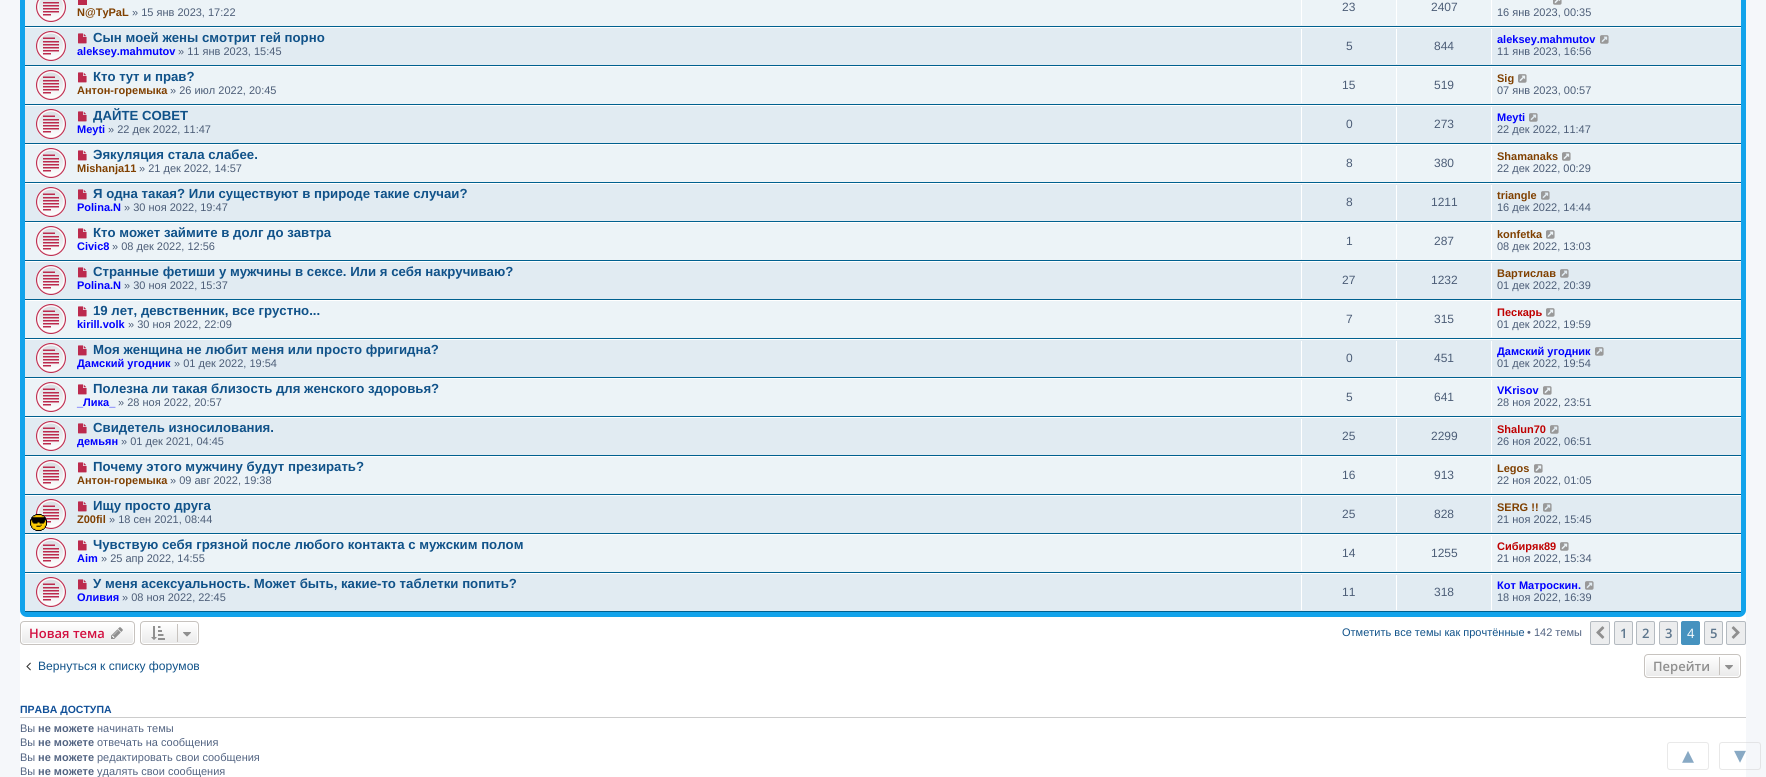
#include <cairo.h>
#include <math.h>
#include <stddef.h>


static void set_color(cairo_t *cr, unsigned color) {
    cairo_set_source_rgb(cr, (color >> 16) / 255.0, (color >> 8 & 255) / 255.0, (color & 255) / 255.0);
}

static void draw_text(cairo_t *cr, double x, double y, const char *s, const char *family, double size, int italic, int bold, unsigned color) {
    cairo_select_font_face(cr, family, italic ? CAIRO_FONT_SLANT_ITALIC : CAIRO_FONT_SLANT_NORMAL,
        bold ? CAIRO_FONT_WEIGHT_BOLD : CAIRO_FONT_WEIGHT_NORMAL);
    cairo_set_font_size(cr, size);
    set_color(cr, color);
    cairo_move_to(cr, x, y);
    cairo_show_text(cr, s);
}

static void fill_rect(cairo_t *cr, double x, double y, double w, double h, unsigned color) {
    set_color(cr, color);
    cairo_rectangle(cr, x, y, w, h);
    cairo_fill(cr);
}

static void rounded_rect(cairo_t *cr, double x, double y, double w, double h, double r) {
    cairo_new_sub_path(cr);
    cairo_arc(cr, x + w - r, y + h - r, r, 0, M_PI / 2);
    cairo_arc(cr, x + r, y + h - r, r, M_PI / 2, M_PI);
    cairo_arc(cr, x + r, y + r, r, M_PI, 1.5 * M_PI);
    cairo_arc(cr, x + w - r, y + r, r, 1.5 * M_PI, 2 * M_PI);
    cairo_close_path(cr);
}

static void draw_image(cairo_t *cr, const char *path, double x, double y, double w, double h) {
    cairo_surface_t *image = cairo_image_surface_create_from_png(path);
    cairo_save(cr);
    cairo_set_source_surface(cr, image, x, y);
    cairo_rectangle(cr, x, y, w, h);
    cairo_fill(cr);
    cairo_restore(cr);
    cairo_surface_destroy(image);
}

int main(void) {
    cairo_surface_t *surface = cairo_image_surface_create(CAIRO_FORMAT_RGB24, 1766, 777);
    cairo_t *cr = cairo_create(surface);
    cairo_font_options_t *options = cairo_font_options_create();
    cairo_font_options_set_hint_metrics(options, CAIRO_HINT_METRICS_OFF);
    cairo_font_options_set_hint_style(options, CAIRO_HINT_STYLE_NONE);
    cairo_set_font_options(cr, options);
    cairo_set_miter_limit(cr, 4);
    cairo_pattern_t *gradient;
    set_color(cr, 0xF5F7FA);
    cairo_paint(cr);
    fill_rect(cr, 20, 610, 1726, 167, 0xFFFFFF);
    gradient = cairo_pattern_create_linear(883, -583, 883, 617);
    cairo_pattern_add_color_stop_rgba(gradient, 0, 0.416, 0.808, 1, 1);
    cairo_pattern_add_color_stop_rgba(gradient, 0, 0, 0.463, 0.694, 1);
    cairo_pattern_add_color_stop_rgba(gradient, 0.08, 0.071, 0.639, 0.922, 1);
    cairo_pattern_add_color_stop_rgba(gradient, 1, 0.071, 0.639, 0.922, 1);
    cairo_set_source(cr, gradient);
    cairo_pattern_destroy(gradient);
    rounded_rect(cr, 20, -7, 1726, 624, 7);
    cairo_fill(cr);
    fill_rect(cr, 25, 0, 1716, 26, 0xECF3F7);
    fill_rect(cr, 25, 26, 1716, 1, 0x00608F);
    draw_image(cr, "assets/img1.png", 36, 0, 30, 22);
    fill_rect(cr, 1301, 0, 1, 25, 0xFFFFFF);
    draw_text(cr, 1342, 11, "23", "Liberation Sans", 12, 0, 0, 0x4C5D77);
    fill_rect(cr, 1396, 0, 1, 25, 0xFFFFFF);
    draw_text(cr, 1431, 11, "2407", "Liberation Sans", 12, 0, 0, 0x4C5D77);
    fill_rect(cr, 78, 0, 9, 5, 0xBC2A4D);
    draw_text(cr, 77, 16, "N@TyPaL", "Liberation Sans", 11, 0, 1, 0x804000);
    draw_text(cr, 132, 16, "» 15 янв 2023, 17:22", "Liberation Sans", 11, 0, 0, 0x4C5D77);
    fill_rect(cr, 1491, 0, 1, 25, 0xFFFFFF);
    draw_image(cr, "assets/img2.png", 1553, 0, 9, 5);
    draw_text(cr, 1497, 16, "16 янв 2023, 00:35", "Liberation Sans", 11, 0, 0, 0x4C5D77);
    fill_rect(cr, 25, 28, 1716, 37, 0xE1EBF2);
    fill_rect(cr, 25, 27, 1716, 1, 0xFFFFFF);
    fill_rect(cr, 25, 65, 1716, 1, 0x00608F);
    draw_image(cr, "assets/img3.png", 36, 31, 30, 30);
    draw_image(cr, "assets/img4.png", 78, 33, 9, 11);
    draw_text(cr, 93, 42, "Сын моей жены смотрит гей порно", "Liberation Sans", 13.2, 0, 1, 0x105289);
    draw_text(cr, 77, 55, "aleksey.mahmutov", "Liberation Sans", 11, 0, 1, 0x0000FF);
    draw_text(cr, 178, 55, "» 11 янв 2023, 15:45", "Liberation Sans", 11, 0, 0, 0x4C5D77);
    fill_rect(cr, 1301, 29, 1, 35, 0xFFFFFF);
    draw_text(cr, 1346, 50, "5", "Liberation Sans", 12, 0, 0, 0x4C5D77);
    fill_rect(cr, 1396, 29, 1, 35, 0xFFFFFF);
    draw_text(cr, 1434, 50, "844", "Liberation Sans", 12, 0, 0, 0x4C5D77);
    fill_rect(cr, 1491, 29, 1, 35, 0xFFFFFF);
    draw_text(cr, 1497, 43, "aleksey.mahmutov", "Liberation Sans", 11, 0, 1, 0x0000FF);
    draw_image(cr, "assets/img5.png", 1600, 35, 9, 9);
    draw_text(cr, 1497, 55, "11 янв 2023, 16:56", "Liberation Sans", 11, 0, 0, 0x4C5D77);
    fill_rect(cr, 25, 67, 1716, 37, 0xECF3F7);
    fill_rect(cr, 25, 66, 1716, 1, 0xFFFFFF);
    fill_rect(cr, 25, 104, 1716, 1, 0x00608F);
    draw_image(cr, "assets/img6.png", 36, 70, 30, 30);
    draw_image(cr, "assets/img7.png", 78, 72, 9, 11);
    draw_text(cr, 93, 81, "Кто тут и прав?", "Liberation Sans", 13.2, 0, 1, 0x105289);
    draw_text(cr, 77, 94, "Антон-горемыка", "Liberation Sans", 11, 0, 1, 0x804000);
    draw_text(cr, 170, 94, "» 26 июл 2022, 20:45", "Liberation Sans", 11, 0, 0, 0x4C5D77);
    fill_rect(cr, 1301, 68, 1, 35, 0xFFFFFF);
    draw_text(cr, 1342, 89, "15", "Liberation Sans", 12, 0, 0, 0x4C5D77);
    fill_rect(cr, 1396, 68, 1, 35, 0xFFFFFF);
    draw_text(cr, 1434, 89, "519", "Liberation Sans", 12, 0, 0, 0x4C5D77);
    fill_rect(cr, 1491, 68, 1, 35, 0xFFFFFF);
    draw_text(cr, 1497, 82, "Sig", "Liberation Sans", 11, 0, 1, 0x804000);
    draw_image(cr, "assets/img8.png", 1518, 74, 9, 9);
    draw_text(cr, 1497, 94, "07 янв 2023, 00:57", "Liberation Sans", 11, 0, 0, 0x4C5D77);
    fill_rect(cr, 25, 106, 1716, 37, 0xE1EBF2);
    fill_rect(cr, 25, 105, 1716, 1, 0xFFFFFF);
    fill_rect(cr, 25, 143, 1716, 1, 0x00608F);
    draw_image(cr, "assets/img3.png", 36, 109, 30, 30);
    draw_image(cr, "assets/img4.png", 78, 111, 9, 11);
    draw_text(cr, 93, 120, "ДАЙТЕ СОВЕТ", "Liberation Sans", 13.2, 0, 1, 0x105289);
    draw_text(cr, 77, 133, "Meyti", "Liberation Sans", 11, 0, 1, 0x0000FF);
    draw_text(cr, 108, 133, "» 22 дек 2022, 11:47", "Liberation Sans", 11, 0, 0, 0x4C5D77);
    fill_rect(cr, 1301, 107, 1, 35, 0xFFFFFF);
    draw_text(cr, 1346, 128, "0", "Liberation Sans", 12, 0, 0, 0x4C5D77);
    fill_rect(cr, 1396, 107, 1, 35, 0xFFFFFF);
    draw_text(cr, 1434, 128, "273", "Liberation Sans", 12, 0, 0, 0x4C5D77);
    fill_rect(cr, 1491, 107, 1, 35, 0xFFFFFF);
    draw_text(cr, 1497, 121, "Meyti", "Liberation Sans", 11, 0, 1, 0x0000FF);
    draw_image(cr, "assets/img5.png", 1529, 113, 9, 9);
    draw_text(cr, 1497, 133, "22 дек 2022, 11:47", "Liberation Sans", 11, 0, 0, 0x4C5D77);
    fill_rect(cr, 25, 145, 1716, 37, 0xECF3F7);
    fill_rect(cr, 25, 144, 1716, 1, 0xFFFFFF);
    fill_rect(cr, 25, 182, 1716, 1, 0x00608F);
    draw_image(cr, "assets/img6.png", 36, 148, 30, 30);
    draw_image(cr, "assets/img7.png", 78, 150, 9, 11);
    draw_text(cr, 93, 159, "Эякуляция стала слабее.", "Liberation Sans", 13.2, 0, 1, 0x105289);
    draw_text(cr, 77, 172, "Mishanja11", "Liberation Sans", 11, 0, 1, 0x804000);
    draw_text(cr, 139, 172, "» 21 дек 2022, 14:57", "Liberation Sans", 11, 0, 0, 0x4C5D77);
    fill_rect(cr, 1301, 146, 1, 35, 0xFFFFFF);
    draw_text(cr, 1346, 167, "8", "Liberation Sans", 12, 0, 0, 0x4C5D77);
    fill_rect(cr, 1396, 146, 1, 35, 0xFFFFFF);
    draw_text(cr, 1434, 167, "380", "Liberation Sans", 12, 0, 0, 0x4C5D77);
    fill_rect(cr, 1491, 146, 1, 35, 0xFFFFFF);
    draw_text(cr, 1497, 160, "Shamanaks", "Liberation Sans", 11, 0, 1, 0x804000);
    draw_image(cr, "assets/img8.png", 1562, 152, 9, 9);
    draw_text(cr, 1497, 172, "22 дек 2022, 00:29", "Liberation Sans", 11, 0, 0, 0x4C5D77);
    fill_rect(cr, 25, 184, 1716, 37, 0xE1EBF2);
    fill_rect(cr, 25, 183, 1716, 1, 0xFFFFFF);
    fill_rect(cr, 25, 221, 1716, 1, 0x00608F);
    draw_image(cr, "assets/img3.png", 36, 187, 30, 30);
    draw_image(cr, "assets/img4.png", 78, 189, 9, 11);
    draw_text(cr, 93, 198, "Я одна такая? Или существуют в природе такие случаи?", "Liberation Sans", 13.2, 0, 1, 0x105289);
    draw_text(cr, 77, 211, "Polina.N", "Liberation Sans", 11, 0, 1, 0x0000FF);
    draw_text(cr, 124, 211, "» 30 ноя 2022, 19:47", "Liberation Sans", 11, 0, 0, 0x4C5D77);
    fill_rect(cr, 1301, 185, 1, 35, 0xFFFFFF);
    draw_text(cr, 1346, 206, "8", "Liberation Sans", 12, 0, 0, 0x4C5D77);
    fill_rect(cr, 1396, 185, 1, 35, 0xFFFFFF);
    draw_text(cr, 1431, 206, "1211", "Liberation Sans", 12, 0, 0, 0x4C5D77);
    fill_rect(cr, 1491, 185, 1, 35, 0xFFFFFF);
    draw_text(cr, 1497, 199, "triangle", "Liberation Sans", 11, 0, 1, 0x804000);
    draw_image(cr, "assets/img5.png", 1541, 191, 9, 9);
    draw_text(cr, 1497, 211, "16 дек 2022, 14:44", "Liberation Sans", 11, 0, 0, 0x4C5D77);
    fill_rect(cr, 25, 223, 1716, 37, 0xECF3F7);
    fill_rect(cr, 25, 222, 1716, 1, 0xFFFFFF);
    fill_rect(cr, 25, 260, 1716, 1, 0x00608F);
    draw_image(cr, "assets/img6.png", 36, 226, 30, 30);
    draw_image(cr, "assets/img7.png", 78, 228, 9, 11);
    draw_text(cr, 93, 237, "Кто может займите в долг до завтра", "Liberation Sans", 13.2, 0, 1, 0x105289);
    draw_text(cr, 77, 250, "Civic8", "Liberation Sans", 11, 0, 1, 0x0000FF);
    draw_text(cr, 112, 250, "» 08 дек 2022, 12:56", "Liberation Sans", 11, 0, 0, 0x4C5D77);
    fill_rect(cr, 1301, 224, 1, 35, 0xFFFFFF);
    draw_text(cr, 1346, 245, "1", "Liberation Sans", 12, 0, 0, 0x4C5D77);
    fill_rect(cr, 1396, 224, 1, 35, 0xFFFFFF);
    draw_text(cr, 1434, 245, "287", "Liberation Sans", 12, 0, 0, 0x4C5D77);
    fill_rect(cr, 1491, 224, 1, 35, 0xFFFFFF);
    draw_text(cr, 1497, 238, "konfetka", "Liberation Sans", 11, 0, 1, 0x804000);
    draw_image(cr, "assets/img8.png", 1546, 230, 9, 9);
    draw_text(cr, 1497, 250, "08 дек 2022, 13:03", "Liberation Sans", 11, 0, 0, 0x4C5D77);
    fill_rect(cr, 25, 262, 1716, 37, 0xE1EBF2);
    fill_rect(cr, 25, 261, 1716, 1, 0xFFFFFF);
    fill_rect(cr, 25, 299, 1716, 1, 0x00608F);
    draw_image(cr, "assets/img3.png", 36, 265, 30, 30);
    draw_image(cr, "assets/img4.png", 78, 267, 9, 11);
    draw_text(cr, 93, 276, "Странные фетиши у мужчины в сексе. Или я себя накручиваю?", "Liberation Sans", 13.2, 0, 1, 0x105289);
    draw_text(cr, 77, 289, "Polina.N", "Liberation Sans", 11, 0, 1, 0x0000FF);
    draw_text(cr, 124, 289, "» 30 ноя 2022, 15:37", "Liberation Sans", 11, 0, 0, 0x4C5D77);
    fill_rect(cr, 1301, 263, 1, 35, 0xFFFFFF);
    draw_text(cr, 1342, 284, "27", "Liberation Sans", 12, 0, 0, 0x4C5D77);
    fill_rect(cr, 1396, 263, 1, 35, 0xFFFFFF);
    draw_text(cr, 1431, 284, "1232", "Liberation Sans", 12, 0, 0, 0x4C5D77);
    fill_rect(cr, 1491, 263, 1, 35, 0xFFFFFF);
    draw_text(cr, 1497, 277, "Вартислав", "Liberation Sans", 11, 0, 1, 0x804000);
    draw_image(cr, "assets/img5.png", 1560, 269, 9, 9);
    draw_text(cr, 1497, 289, "01 дек 2022, 20:39", "Liberation Sans", 11, 0, 0, 0x4C5D77);
    fill_rect(cr, 25, 301, 1716, 37, 0xECF3F7);
    fill_rect(cr, 25, 300, 1716, 1, 0xFFFFFF);
    fill_rect(cr, 25, 338, 1716, 1, 0x00608F);
    draw_image(cr, "assets/img6.png", 36, 304, 30, 30);
    draw_image(cr, "assets/img7.png", 78, 306, 9, 11);
    draw_text(cr, 93, 315, "19 лет, девственник, все грустно...", "Liberation Sans", 13.2, 0, 1, 0x105289);
    draw_text(cr, 77, 328, "kirill.volk", "Liberation Sans", 11, 0, 1, 0x0000FF);
    draw_text(cr, 128, 328, "» 30 ноя 2022, 22:09", "Liberation Sans", 11, 0, 0, 0x4C5D77);
    fill_rect(cr, 1301, 302, 1, 35, 0xFFFFFF);
    draw_text(cr, 1346, 323, "7", "Liberation Sans", 12, 0, 0, 0x4C5D77);
    fill_rect(cr, 1396, 302, 1, 35, 0xFFFFFF);
    draw_text(cr, 1434, 323, "315", "Liberation Sans", 12, 0, 0, 0x4C5D77);
    fill_rect(cr, 1491, 302, 1, 35, 0xFFFFFF);
    draw_text(cr, 1497, 316, "Пескарь", "Liberation Sans", 11, 0, 1, 0xBF0000);
    draw_image(cr, "assets/img8.png", 1546, 308, 9, 9);
    draw_text(cr, 1497, 328, "01 дек 2022, 19:59", "Liberation Sans", 11, 0, 0, 0x4C5D77);
    fill_rect(cr, 25, 340, 1716, 37, 0xE1EBF2);
    fill_rect(cr, 25, 339, 1716, 1, 0xFFFFFF);
    fill_rect(cr, 25, 377, 1716, 1, 0x00608F);
    draw_image(cr, "assets/img3.png", 36, 343, 30, 30);
    draw_image(cr, "assets/img4.png", 78, 345, 9, 11);
    draw_text(cr, 93, 354, "Моя женщина не любит меня или просто фригидна?", "Liberation Sans", 13.2, 0, 1, 0x105289);
    draw_text(cr, 77, 367, "Дамский угодник", "Liberation Sans", 11, 0, 1, 0x0000FF);
    draw_text(cr, 174, 367, "» 01 дек 2022, 19:54", "Liberation Sans", 11, 0, 0, 0x4C5D77);
    fill_rect(cr, 1301, 341, 1, 35, 0xFFFFFF);
    draw_text(cr, 1346, 362, "0", "Liberation Sans", 12, 0, 0, 0x4C5D77);
    fill_rect(cr, 1396, 341, 1, 35, 0xFFFFFF);
    draw_text(cr, 1434, 362, "451", "Liberation Sans", 12, 0, 0, 0x4C5D77);
    fill_rect(cr, 1491, 341, 1, 35, 0xFFFFFF);
    draw_text(cr, 1497, 355, "Дамский угодник", "Liberation Sans", 11, 0, 1, 0x0000FF);
    draw_image(cr, "assets/img5.png", 1595, 347, 9, 9);
    draw_text(cr, 1497, 367, "01 дек 2022, 19:54", "Liberation Sans", 11, 0, 0, 0x4C5D77);
    fill_rect(cr, 25, 379, 1716, 37, 0xECF3F7);
    fill_rect(cr, 25, 378, 1716, 1, 0xFFFFFF);
    fill_rect(cr, 25, 416, 1716, 1, 0x00608F);
    draw_image(cr, "assets/img6.png", 36, 382, 30, 30);
    draw_image(cr, "assets/img7.png", 78, 384, 9, 11);
    draw_text(cr, 93, 393, "Полезна ли такая близость для женского здоровья?", "Liberation Sans", 13.2, 0, 1, 0x105289);
    draw_text(cr, 77, 406, "_Лика_", "Liberation Sans", 11, 0, 1, 0x0000FF);
    draw_text(cr, 118, 406, "» 28 ноя 2022, 20:57", "Liberation Sans", 11, 0, 0, 0x4C5D77);
    fill_rect(cr, 1301, 380, 1, 35, 0xFFFFFF);
    draw_text(cr, 1346, 401, "5", "Liberation Sans", 12, 0, 0, 0x4C5D77);
    fill_rect(cr, 1396, 380, 1, 35, 0xFFFFFF);
    draw_text(cr, 1434, 401, "641", "Liberation Sans", 12, 0, 0, 0x4C5D77);
    fill_rect(cr, 1491, 380, 1, 35, 0xFFFFFF);
    draw_text(cr, 1497, 394, "VKrisov", "Liberation Sans", 11, 0, 1, 0x0000FF);
    draw_image(cr, "assets/img8.png", 1543, 386, 9, 9);
    draw_text(cr, 1497, 406, "28 ноя 2022, 23:51", "Liberation Sans", 11, 0, 0, 0x4C5D77);
    fill_rect(cr, 25, 418, 1716, 37, 0xE1EBF2);
    fill_rect(cr, 25, 417, 1716, 1, 0xFFFFFF);
    fill_rect(cr, 25, 455, 1716, 1, 0x00608F);
    draw_image(cr, "assets/img3.png", 36, 421, 30, 30);
    draw_image(cr, "assets/img4.png", 78, 423, 9, 11);
    draw_text(cr, 93, 432, "Свидетель износилования.", "Liberation Sans", 13.2, 0, 1, 0x105289);
    draw_text(cr, 77, 445, "демьян", "Liberation Sans", 11, 0, 1, 0x0000FF);
    draw_text(cr, 121, 445, "» 01 дек 2021, 04:45", "Liberation Sans", 11, 0, 0, 0x4C5D77);
    fill_rect(cr, 1301, 419, 1, 35, 0xFFFFFF);
    draw_text(cr, 1342, 440, "25", "Liberation Sans", 12, 0, 0, 0x4C5D77);
    fill_rect(cr, 1396, 419, 1, 35, 0xFFFFFF);
    draw_text(cr, 1431, 440, "2299", "Liberation Sans", 12, 0, 0, 0x4C5D77);
    fill_rect(cr, 1491, 419, 1, 35, 0xFFFFFF);
    draw_text(cr, 1497, 433, "Shalun70", "Liberation Sans", 11, 0, 1, 0xBF0000);
    draw_image(cr, "assets/img5.png", 1550, 425, 9, 9);
    draw_text(cr, 1497, 445, "26 ноя 2022, 06:51", "Liberation Sans", 11, 0, 0, 0x4C5D77);
    fill_rect(cr, 25, 457, 1716, 37, 0xECF3F7);
    fill_rect(cr, 25, 456, 1716, 1, 0xFFFFFF);
    fill_rect(cr, 25, 494, 1716, 1, 0x00608F);
    draw_image(cr, "assets/img6.png", 36, 460, 30, 30);
    draw_image(cr, "assets/img7.png", 78, 462, 9, 11);
    draw_text(cr, 93, 471, "Почему этого мужчину будут презирать?", "Liberation Sans", 13.2, 0, 1, 0x105289);
    draw_text(cr, 77, 484, "Антон-горемыка", "Liberation Sans", 11, 0, 1, 0x804000);
    draw_text(cr, 170, 484, "» 09 авг 2022, 19:38", "Liberation Sans", 11, 0, 0, 0x4C5D77);
    fill_rect(cr, 1301, 458, 1, 35, 0xFFFFFF);
    draw_text(cr, 1342, 479, "16", "Liberation Sans", 12, 0, 0, 0x4C5D77);
    fill_rect(cr, 1396, 458, 1, 35, 0xFFFFFF);
    draw_text(cr, 1434, 479, "913", "Liberation Sans", 12, 0, 0, 0x4C5D77);
    fill_rect(cr, 1491, 458, 1, 35, 0xFFFFFF);
    draw_text(cr, 1497, 472, "Legos", "Liberation Sans", 11, 0, 1, 0x804000);
    draw_image(cr, "assets/img8.png", 1534, 464, 9, 9);
    draw_text(cr, 1497, 484, "22 ноя 2022, 01:05", "Liberation Sans", 11, 0, 0, 0x4C5D77);
    fill_rect(cr, 25, 496, 1716, 37, 0xE1EBF2);
    fill_rect(cr, 25, 495, 1716, 1, 0xFFFFFF);
    fill_rect(cr, 25, 533, 1716, 1, 0x00608F);
    draw_image(cr, "assets/img3.png", 36, 499, 30, 30);
    draw_image(cr, "assets/img9.png", 30, 514, 17, 17);
    draw_image(cr, "assets/img4.png", 78, 501, 9, 11);
    draw_text(cr, 93, 510, "Ищу просто друга", "Liberation Sans", 13.2, 0, 1, 0x105289);
    draw_text(cr, 77, 523, "Z00fil", "Liberation Sans", 11, 0, 1, 0x804000);
    draw_text(cr, 109, 523, "» 18 сен 2021, 08:44", "Liberation Sans", 11, 0, 0, 0x4C5D77);
    fill_rect(cr, 1301, 497, 1, 35, 0xFFFFFF);
    draw_text(cr, 1342, 518, "25", "Liberation Sans", 12, 0, 0, 0x4C5D77);
    fill_rect(cr, 1396, 497, 1, 35, 0xFFFFFF);
    draw_text(cr, 1434, 518, "828", "Liberation Sans", 12, 0, 0, 0x4C5D77);
    fill_rect(cr, 1491, 497, 1, 35, 0xFFFFFF);
    draw_text(cr, 1497, 511, "SERG !!", "Liberation Sans", 11, 0, 1, 0x804000);
    draw_image(cr, "assets/img5.png", 1543, 503, 9, 9);
    draw_text(cr, 1497, 523, "21 ноя 2022, 15:45", "Liberation Sans", 11, 0, 0, 0x4C5D77);
    fill_rect(cr, 25, 535, 1716, 37, 0xECF3F7);
    fill_rect(cr, 25, 534, 1716, 1, 0xFFFFFF);
    fill_rect(cr, 25, 572, 1716, 1, 0x00608F);
    draw_image(cr, "assets/img6.png", 36, 538, 30, 30);
    draw_image(cr, "assets/img7.png", 78, 540, 9, 11);
    draw_text(cr, 93, 549, "Чувствую себя грязной после любого контакта с мужским полом", "Liberation Sans", 13.2, 0, 1, 0x105289);
    draw_text(cr, 77, 562, "Aim", "Liberation Sans", 11, 0, 1, 0x0000FF);
    draw_text(cr, 101, 562, "» 25 апр 2022, 14:55", "Liberation Sans", 11, 0, 0, 0x4C5D77);
    fill_rect(cr, 1301, 536, 1, 35, 0xFFFFFF);
    draw_text(cr, 1342, 557, "14", "Liberation Sans", 12, 0, 0, 0x4C5D77);
    fill_rect(cr, 1396, 536, 1, 35, 0xFFFFFF);
    draw_text(cr, 1431, 557, "1255", "Liberation Sans", 12, 0, 0, 0x4C5D77);
    fill_rect(cr, 1491, 536, 1, 35, 0xFFFFFF);
    draw_text(cr, 1497, 550, "Сибиряк89", "Liberation Sans", 11, 0, 1, 0xBF0000);
    draw_image(cr, "assets/img8.png", 1560, 542, 9, 9);
    draw_text(cr, 1497, 562, "21 ноя 2022, 15:34", "Liberation Sans", 11, 0, 0, 0x4C5D77);
    fill_rect(cr, 25, 574, 1716, 37, 0xE1EBF2);
    fill_rect(cr, 25, 573, 1716, 1, 0xFFFFFF);
    fill_rect(cr, 25, 611, 1716, 1, 0x00608F);
    draw_image(cr, "assets/img3.png", 36, 577, 30, 30);
    draw_image(cr, "assets/img4.png", 78, 579, 9, 11);
    draw_text(cr, 93, 588, "У меня асексуальность. Может быть, какие-то таблетки попить?", "Liberation Sans", 13.2, 0, 1, 0x105289);
    draw_text(cr, 77, 601, "Оливия", "Liberation Sans", 11, 0, 1, 0x0000FF);
    draw_text(cr, 122, 601, "» 08 ноя 2022, 22:45", "Liberation Sans", 11, 0, 0, 0x4C5D77);
    fill_rect(cr, 1301, 575, 1, 35, 0xFFFFFF);
    draw_text(cr, 1342, 596, "11", "Liberation Sans", 12, 0, 0, 0x4C5D77);
    fill_rect(cr, 1396, 575, 1, 35, 0xFFFFFF);
    draw_text(cr, 1434, 596, "318", "Liberation Sans", 12, 0, 0, 0x4C5D77);
    fill_rect(cr, 1491, 575, 1, 35, 0xFFFFFF);
    draw_text(cr, 1497, 589, "Кот Матроскин.", "Liberation Sans", 11, 0, 1, 0x0000FF);
    draw_image(cr, "assets/img5.png", 1585, 581, 9, 9);
    draw_text(cr, 1497, 601, "18 ноя 2022, 16:39", "Liberation Sans", 11, 0, 0, 0x4C5D77);
    cairo_save(cr);
    rounded_rect(cr, 20, 621, 115, 24, 4);
    cairo_clip(cr);
    gradient = cairo_pattern_create_linear(78, 622, 78, 644);
    cairo_pattern_add_color_stop_rgba(gradient, 0, 1, 1, 1, 1);
    cairo_pattern_add_color_stop_rgba(gradient, 1, 0.914, 0.914, 0.914, 1);
    cairo_set_source(cr, gradient);
    cairo_pattern_destroy(gradient);
    cairo_rectangle(cr, 20, 622, 115, 22);
    cairo_fill(cr);
    cairo_restore(cr);
    rounded_rect(cr, 21.5, 622.5, 112, 21, 2.5);
    set_color(cr, 0xFFFFFF);
    cairo_set_line_width(cr, 1);
    cairo_stroke(cr);
    rounded_rect(cr, 20.5, 621.5, 114, 23, 3.5);
    set_color(cr, 0xC7C3BF);
    cairo_stroke(cr);
    draw_text(cr, 29, 638, "Новая тема", "Open Sans SemiBold", 13, 0, 0, 0xD31141);
    draw_image(cr, "assets/img10.png", 111, 627, 12, 12);
    cairo_save(cr);
    rounded_rect(cr, 140, 621, 59, 24, 4);
    cairo_clip(cr);
    gradient = cairo_pattern_create_linear(170, 622, 170, 644);
    cairo_pattern_add_color_stop_rgba(gradient, 0, 1, 1, 1, 1);
    cairo_pattern_add_color_stop_rgba(gradient, 1, 0.914, 0.914, 0.914, 1);
    cairo_set_source(cr, gradient);
    cairo_pattern_destroy(gradient);
    cairo_rectangle(cr, 140, 622, 59, 22);
    cairo_fill(cr);
    cairo_restore(cr);
    rounded_rect(cr, 141.5, 622.5, 56, 21, 2.5);
    set_color(cr, 0xFFFFFF);
    cairo_stroke(cr);
    rounded_rect(cr, 140.5, 621.5, 58, 23, 3.5);
    set_color(cr, 0xC7C3BF);
    cairo_stroke(cr);
    draw_image(cr, "assets/img11.png", 151, 626, 14, 14);
    fill_rect(cr, 177, 624, 1, 18, 0xC7C3BF);
    draw_image(cr, "assets/img12.png", 183, 632, 8, 5);
    draw_text(cr, 1342, 636, "Отметить все темы как прочтённые", "Liberation Sans", 11, 0, 0, 0x105289);
    draw_text(cr, 1527, 636, "• 142 темы", "Liberation Sans", 11, 0, 0, 0x536482);
    set_color(cr, 0xECEDEE);
    rounded_rect(cr, 1590.5, 621.5, 19, 23, 1.5);
    cairo_fill_preserve(cr);
    set_color(cr, 0xB4BAC0);
    cairo_stroke(cr);
    draw_image(cr, "assets/img13.png", 1596, 626, 9, 13);
    set_color(cr, 0xECEDEE);
    rounded_rect(cr, 1614.5, 621.5, 18, 23, 1.5);
    cairo_fill_preserve(cr);
    set_color(cr, 0xB4BAC0);
    cairo_stroke(cr);
    draw_text(cr, 1620, 638, "1", "Open Sans SemiBold", 13, 0, 0, 0x5C758C);
    set_color(cr, 0xECEDEE);
    rounded_rect(cr, 1636.5, 621.5, 18, 23, 1.5);
    cairo_fill_preserve(cr);
    set_color(cr, 0xB4BAC0);
    cairo_stroke(cr);
    draw_text(cr, 1642, 638, "2", "Open Sans SemiBold", 13, 0, 0, 0x5C758C);
    set_color(cr, 0xECEDEE);
    rounded_rect(cr, 1659.5, 621.5, 18, 23, 1.5);
    cairo_fill_preserve(cr);
    set_color(cr, 0xB4BAC0);
    cairo_stroke(cr);
    draw_text(cr, 1665, 638, "3", "Open Sans SemiBold", 13, 0, 0, 0x5C758C);
    set_color(cr, 0x4692BF);
    rounded_rect(cr, 1681.5, 621.5, 18, 23, 1.5);
    cairo_fill_preserve(cr);
    cairo_stroke(cr);
    draw_text(cr, 1687, 638, "4", "Open Sans", 13, 0, 0, 0xFFFFFF);
    set_color(cr, 0xECEDEE);
    rounded_rect(cr, 1704.5, 621.5, 18, 23, 1.5);
    cairo_fill_preserve(cr);
    set_color(cr, 0xB4BAC0);
    cairo_stroke(cr);
    draw_text(cr, 1710, 638, "5", "Open Sans SemiBold", 13, 0, 0, 0x5C758C);
    set_color(cr, 0xECEDEE);
    rounded_rect(cr, 1726.5, 621.5, 19, 23, 1.5);
    cairo_fill_preserve(cr);
    set_color(cr, 0xB4BAC0);
    cairo_stroke(cr);
    draw_image(cr, "assets/img14.png", 1731, 626, 9, 13);
    draw_image(cr, "assets/img15.png", 26, 662, 5, 9);
    draw_text(cr, 38, 670, "Вернуться к списку форумов", "Liberation Sans", 12.1, 0, 0, 0x105289);
    cairo_save(cr);
    rounded_rect(cr, 1644, 654, 97, 24, 4);
    cairo_clip(cr);
    gradient = cairo_pattern_create_linear(1693, 655, 1693, 677);
    cairo_pattern_add_color_stop_rgba(gradient, 0, 1, 1, 1, 1);
    cairo_pattern_add_color_stop_rgba(gradient, 1, 0.914, 0.914, 0.914, 1);
    cairo_set_source(cr, gradient);
    cairo_pattern_destroy(gradient);
    cairo_rectangle(cr, 1644, 655, 97, 22);
    cairo_fill(cr);
    cairo_restore(cr);
    rounded_rect(cr, 1645.5, 655.5, 94, 21, 2.5);
    set_color(cr, 0xFFFFFF);
    cairo_stroke(cr);
    rounded_rect(cr, 1644.5, 654.5, 96, 23, 3.5);
    set_color(cr, 0xC7C3BF);
    cairo_stroke(cr);
    draw_text(cr, 1653, 671, "Перейти", "Open Sans SemiBold", 13, 0, 0, 0x8F8F8F);
    fill_rect(cr, 1719, 657, 1, 18, 0xC7C3BF);
    draw_image(cr, "assets/img12.png", 1725, 665, 8, 5);
    fill_rect(cr, 20, 717, 1726, 1, 0xCCCCCC);
    draw_text(cr, 20, 713, "ПРАВА ДОСТУПА", "Liberation Sans", 10.5, 0, 1, 0x115098);
    draw_text(cr, 20, 732, "Вы", "Liberation Sans", 11, 0, 0, 0x536482);
    draw_text(cr, 38, 732, "не можете", "Liberation Sans", 11, 0, 1, 0x536482);
    draw_text(cr, 97, 732, "начинать темы", "Liberation Sans", 11, 0, 0, 0x536482);
    draw_text(cr, 20, 746, "Вы", "Liberation Sans", 11, 0, 0, 0x536482);
    draw_text(cr, 38, 746, "не можете", "Liberation Sans", 11, 0, 1, 0x536482);
    draw_text(cr, 97, 746, "отвечать на сообщения", "Liberation Sans", 11, 0, 0, 0x536482);
    draw_text(cr, 20, 761, "Вы", "Liberation Sans", 11, 0, 0, 0x536482);
    draw_text(cr, 38, 761, "не можете", "Liberation Sans", 11, 0, 1, 0x536482);
    draw_text(cr, 97, 761, "редактировать свои сообщения", "Liberation Sans", 11, 0, 0, 0x536482);
    draw_text(cr, 20, 775, "Вы", "Liberation Sans", 11, 0, 0, 0x536482);
    draw_text(cr, 38, 775, "не можете", "Liberation Sans", 11, 0, 1, 0x536482);
    draw_text(cr, 97, 775, "удалять свои сообщения", "Liberation Sans", 11, 0, 0, 0x536482);
    rounded_rect(cr, 1667.5, 742.5, 41, 27, 2.5);
    set_color(cr, 0xE9E9E9);
    cairo_stroke(cr);
    draw_text(cr, 1682, 762, "▲", "DejaVu Sans Mono", 20, 0, 1, 0x88A9C4);
    rounded_rect(cr, 1719.5, 742.5, 41, 27, 2.5);
    cairo_set_source_rgba(cr, 0.827, 0.827, 0.827, 0.5);
    cairo_stroke(cr);
    draw_text(cr, 1734, 762, "▼", "DejaVu Sans Mono", 20, 0, 1, 0x88A9C4);
    cairo_surface_write_to_png(surface, "output.png");
    cairo_font_options_destroy(options);
    cairo_destroy(cr);
    cairo_surface_destroy(surface);
    return 0;
}
